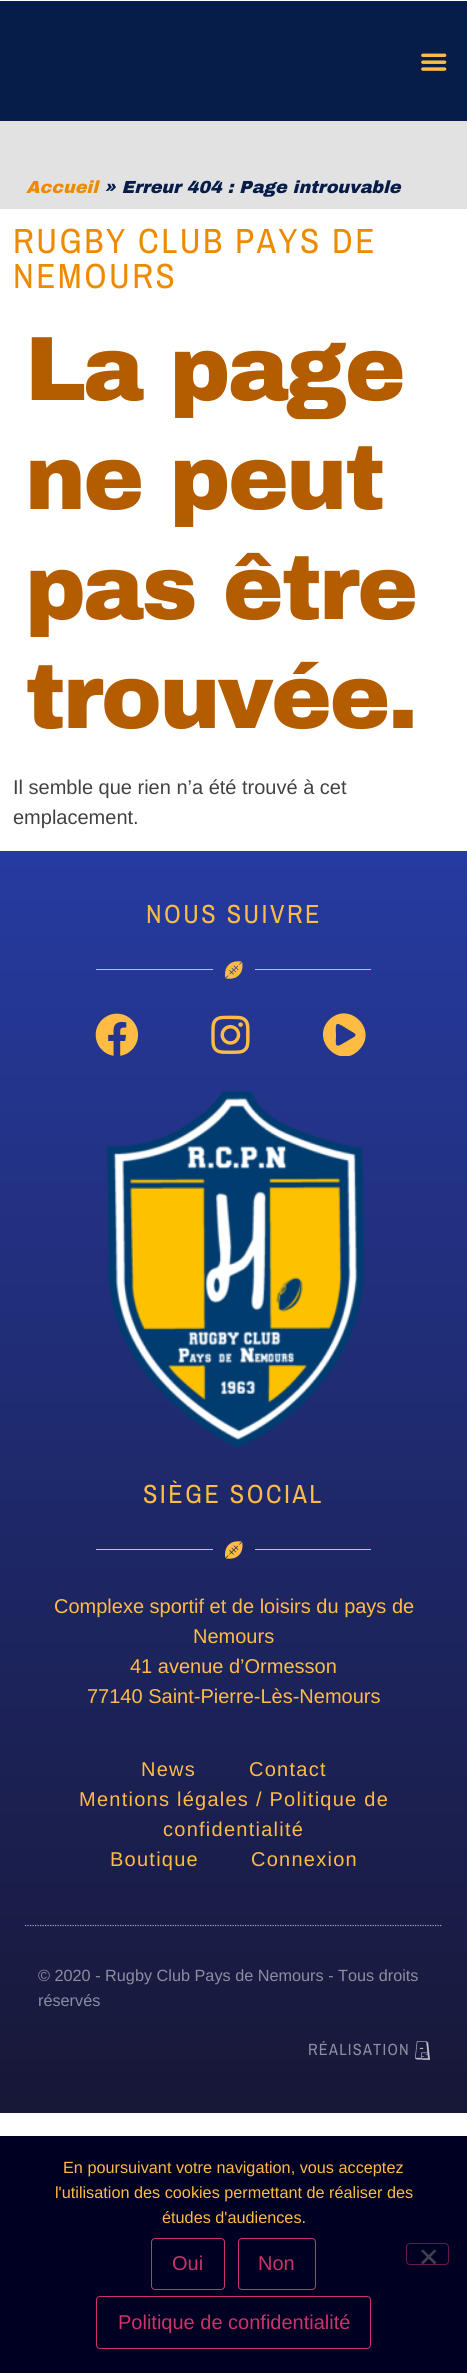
#include <cairo.h>
#include <math.h>
#include <stddef.h>


static void set_color(cairo_t *cr, unsigned color) {
    cairo_set_source_rgb(cr, (color >> 16) / 255.0, (color >> 8 & 255) / 255.0, (color & 255) / 255.0);
}

static void draw_text(cairo_t *cr, double x, double y, const char *s, const char *family, double size, int italic, int bold, unsigned color) {
    cairo_select_font_face(cr, family, italic ? CAIRO_FONT_SLANT_ITALIC : CAIRO_FONT_SLANT_NORMAL,
        bold ? CAIRO_FONT_WEIGHT_BOLD : CAIRO_FONT_WEIGHT_NORMAL);
    cairo_set_font_size(cr, size);
    set_color(cr, color);
    cairo_move_to(cr, x, y);
    cairo_show_text(cr, s);
}

static void draw_spaced(cairo_t *cr, double x, double y, const char *s, double letter, double word) {
    cairo_move_to(cr, x, y);
    while (*s) {
        char ch[5] = {0};
        int n = 0;
        do ch[n++] = *s++; while ((*s & 0xC0) == 0x80);
        cairo_show_text(cr, ch);
        cairo_rel_move_to(cr, letter + word * (*ch == ' '), 0);
    }
}

static void fill_rect(cairo_t *cr, double x, double y, double w, double h, unsigned color) {
    set_color(cr, color);
    cairo_rectangle(cr, x, y, w, h);
    cairo_fill(cr);
}

static void rounded_rect(cairo_t *cr, double x, double y, double w, double h, double r) {
    cairo_new_sub_path(cr);
    cairo_arc(cr, x + w - r, y + h - r, r, 0, M_PI / 2);
    cairo_arc(cr, x + r, y + h - r, r, M_PI / 2, M_PI);
    cairo_arc(cr, x + r, y + r, r, M_PI, 1.5 * M_PI);
    cairo_arc(cr, x + w - r, y + r, r, 1.5 * M_PI, 2 * M_PI);
    cairo_close_path(cr);
}

static void draw_image(cairo_t *cr, const char *path, double x, double y, double w, double h) {
    cairo_surface_t *image = cairo_image_surface_create_from_png(path);
    cairo_save(cr);
    cairo_set_source_surface(cr, image, x, y);
    cairo_rectangle(cr, x, y, w, h);
    cairo_fill(cr);
    cairo_restore(cr);
    cairo_surface_destroy(image);
}

int main(void) {
    cairo_surface_t *surface = cairo_image_surface_create(CAIRO_FORMAT_RGB24, 467, 2373);
    cairo_t *cr = cairo_create(surface);
    cairo_font_options_t *options = cairo_font_options_create();
    cairo_font_options_set_hint_metrics(options, CAIRO_HINT_METRICS_OFF);
    cairo_font_options_set_hint_style(options, CAIRO_HINT_STYLE_NONE);
    cairo_set_font_options(cr, options);
    cairo_set_miter_limit(cr, 4);
    cairo_pattern_t *gradient;
    set_color(cr, 0xFFFFFF);
    cairo_paint(cr);
    fill_rect(cr, 0, 1, 467, 120, 0x071D49);
    draw_image(cr, "assets/img1.png", 421, 53, 26, 18);
    fill_rect(cr, 0, 121, 467, 88, 0xE2E2E3);
    draw_text(cr, 26, 193, "Accueil", "Archivo Black Black", 17.5, 1, 0, 0xED8B00);
    draw_text(cr, 104, 193, "» Erreur 404 : Page introuvable", "Archivo Black Black", 17.5, 1, 0, 0x071D49);
    cairo_select_font_face(cr, "Archivo Narrow", CAIRO_FONT_SLANT_NORMAL, CAIRO_FONT_WEIGHT_NORMAL);
    cairo_set_font_size(cr, 35);
    set_color(cr, 0xED8B00);
    draw_spaced(cr, 13, 253, "RUGBY CLUB PAYS DE", 2.5, 0);
    draw_spaced(cr, 13, 288, "NEMOURS", 2.5, 0);
    cairo_select_font_face(cr, "Archivo Black Black", CAIRO_FONT_SLANT_NORMAL, CAIRO_FONT_WEIGHT_NORMAL);
    cairo_set_font_size(cr, 91.25);
    set_color(cr, 0xB45D00);
    draw_spaced(cr, 25, 400, "La page", -2.5, 0);
    draw_spaced(cr, 25, 509, "ne peut", -2.5, 0);
    draw_spaced(cr, 25, 619, "pas être", -2.5, 0);
    draw_spaced(cr, 25, 728, "trouvée.", -2.5, 0);
    draw_text(cr, 13, 794, "Il semble que rien n’a été trouvé à cet", "Liberation Sans", 20, 0, 0, 0x424242);
    draw_text(cr, 13, 824, "emplacement.", "Liberation Sans", 20, 0, 0, 0x424242);
    gradient = cairo_pattern_create_linear(234, 851, 234, 2113);
    cairo_pattern_add_color_stop_rgba(gradient, 0, 0.149, 0.231, 0.627, 1);
    cairo_pattern_add_color_stop_rgba(gradient, 1, 0.09, 0.09, 0.212, 1);
    cairo_set_source(cr, gradient);
    cairo_pattern_destroy(gradient);
    cairo_rectangle(cr, 0, 851, 467, 1262);
    cairo_fill(cr);
    cairo_select_font_face(cr, "Archivo Narrow", CAIRO_FONT_SLANT_NORMAL, CAIRO_FONT_WEIGHT_NORMAL);
    cairo_set_font_size(cr, 26.25);
    set_color(cr, 0xFFBB44);
    draw_spaced(cr, 146, 923, "NOUS SUIVRE", 2.5, 0);
    fill_rect(cr, 96, 969, 117, 1, 0xFFBB44);
    draw_image(cr, "assets/img2.png", 225, 961, 18, 18);
    fill_rect(cr, 255, 969, 116, 1, 0xFFBB44);
    draw_image(cr, "assets/img3.png", 95, 1013, 44, 43);
    draw_image(cr, "assets/img4.png", 211, 1015, 39, 39);
    cairo_save(cr);
    cairo_rectangle(cr, 38, 1013, 392, 43);
    cairo_clip(cr);
    cairo_new_path(cr);
    cairo_move_to(cr, 329, 1020);
    cairo_curve_to(cr, 349, 1000, 379, 1030, 359, 1050);
    cairo_curve_to(cr, 340, 1070, 310, 1040, 329, 1020);
    cairo_close_path(cr);
    cairo_move_to(cr, 354, 1037);
    cairo_curve_to(cr, 359, 1034, 350, 1031, 349, 1030);
    cairo_curve_to(cr, 347, 1029, 339, 1023, 337, 1024);
    cairo_curve_to(cr, 335, 1025, 336, 1033, 336, 1035);
    cairo_curve_to(cr, 336, 1042, 334, 1049, 342, 1044);
    cairo_close_path(cr);
    cairo_fill(cr);
    cairo_restore(cr);
    draw_image(cr, "assets/img5.png", 106, 1091, 259, 357);
    draw_spaced(cr, 143, 1503, "SIÈGE SOCIAL", 2.5, 0);
    fill_rect(cr, 96, 1549, 117, 1, 0xFFBB44);
    draw_image(cr, "assets/img6.png", 225, 1541, 18, 18);
    fill_rect(cr, 255, 1549, 116, 1, 0xFFBB44);
    draw_text(cr, 54, 1613, "Complexe sportif et de loisirs du pays de", "Liberation Sans", 20, 0, 0, 0xFFBB44);
    draw_text(cr, 193, 1643, "Nemours", "Liberation Sans", 20, 0, 0, 0xFFBB44);
    draw_text(cr, 130, 1673, "41 avenue d’Ormesson", "Liberation Sans", 20, 0, 0, 0xFFBB44);
    draw_text(cr, 87, 1703, "77140 Saint-Pierre-Lès-Nemours", "Liberation Sans", 20, 0, 0, 0xFFBB44);
    draw_spaced(cr, 141, 1776, "News", 1.25, 0);
    draw_spaced(cr, 249, 1776, "Contact", 1.25, 0);
    draw_spaced(cr, 79, 1806, "Mentions légales / Politique de", 1.25, 0);
    draw_spaced(cr, 163, 1836, "confidentialité", 1.25, 0);
    draw_spaced(cr, 110, 1866, "Boutique", 1.25, 0);
    draw_spaced(cr, 251, 1866, "Connexion", 1.25, 0);
    cairo_new_path(cr);
    cairo_move_to(cr, 25, 1925.5);
    cairo_line_to(cr, 442.5, 1925.5);
    set_color(cr, 0xA1A2B3);
    cairo_set_line_width(cr, 1.2);
    cairo_set_dash(cr, (double[]){1.25, 1.25}, 2, 0);
    cairo_stroke(cr);
    draw_text(cr, 38, 1981, "© 2020 - Rugby Club Pays de Nemours - Tous droits", "Liberation Sans", 16.25, 0, 0, 0x8C8DA0);
    draw_text(cr, 38, 2006, "réservés", "Liberation Sans", 16.25, 0, 0, 0x8C8DA0);
    cairo_select_font_face(cr, "Archivo Narrow", CAIRO_FONT_SLANT_NORMAL, CAIRO_FONT_WEIGHT_NORMAL);
    draw_spaced(cr, 308, 2055, "RÉALISATION", 1.25, 0);
    draw_image(cr, "assets/img7.png", 415, 2041, 15, 19);
    fill_rect(cr, 0, 2136, 467, 237, 0x000022);
    draw_text(cr, 63, 2173, "En poursuivant votre navigation, vous acceptez", "Liberation Sans", 16.25, 0, 0, 0xFFBB44);
    draw_text(cr, 55, 2198, "l'utilisation des cookies permettant de réaliser des", "Liberation Sans", 16.25, 0, 0, 0xFFBB44);
    draw_text(cr, 162, 2223, "études d'audiences.", "Liberation Sans", 16.25, 0, 0, 0xFFBB44);
    rounded_rect(cr, 151.5, 2238.5, 73, 51, 3.5);
    set_color(cr, 0xCC3366);
    cairo_set_line_width(cr, 1);
    cairo_set_dash(cr, NULL, 0, 0);
    cairo_stroke(cr);
    draw_text(cr, 172, 2270, "Oui", "Liberation Sans", 20, 0, 0, 0xCC3366);
    rounded_rect(cr, 238.5, 2238.5, 77, 51, 3.5);
    cairo_stroke(cr);
    draw_text(cr, 258, 2270, "Non", "Liberation Sans", 20, 0, 0, 0xCC3366);
    rounded_rect(cr, 96.5, 2296.5, 274, 52, 3.5);
    cairo_stroke(cr);
    draw_text(cr, 118, 2329, "Politique de confidentialité", "Liberation Sans", 20, 0, 0, 0xCC3366);
    rounded_rect(cr, 406.5, 2243.5, 42, 21, 3.5);
    set_color(cr, 0x661A44);
    cairo_stroke(cr);
    set_color(cr, 0x404051);
    cairo_new_path(cr);
    cairo_move_to(cr, 434.5, 2249.5);
    cairo_line_to(cr, 436.5, 2251);
    cairo_line_to(cr, 423, 2264.5);
    cairo_line_to(cr, 421, 2262.5);
    cairo_close_path(cr);
    cairo_fill(cr);
    cairo_new_path(cr);
    cairo_move_to(cr, 421, 2251);
    cairo_line_to(cr, 423, 2249.5);
    cairo_line_to(cr, 436.5, 2262.5);
    cairo_line_to(cr, 434.5, 2264.5);
    cairo_close_path(cr);
    cairo_fill(cr);
    cairo_surface_write_to_png(surface, "output.png");
    cairo_font_options_destroy(options);
    cairo_destroy(cr);
    cairo_surface_destroy(surface);
    return 0;
}
